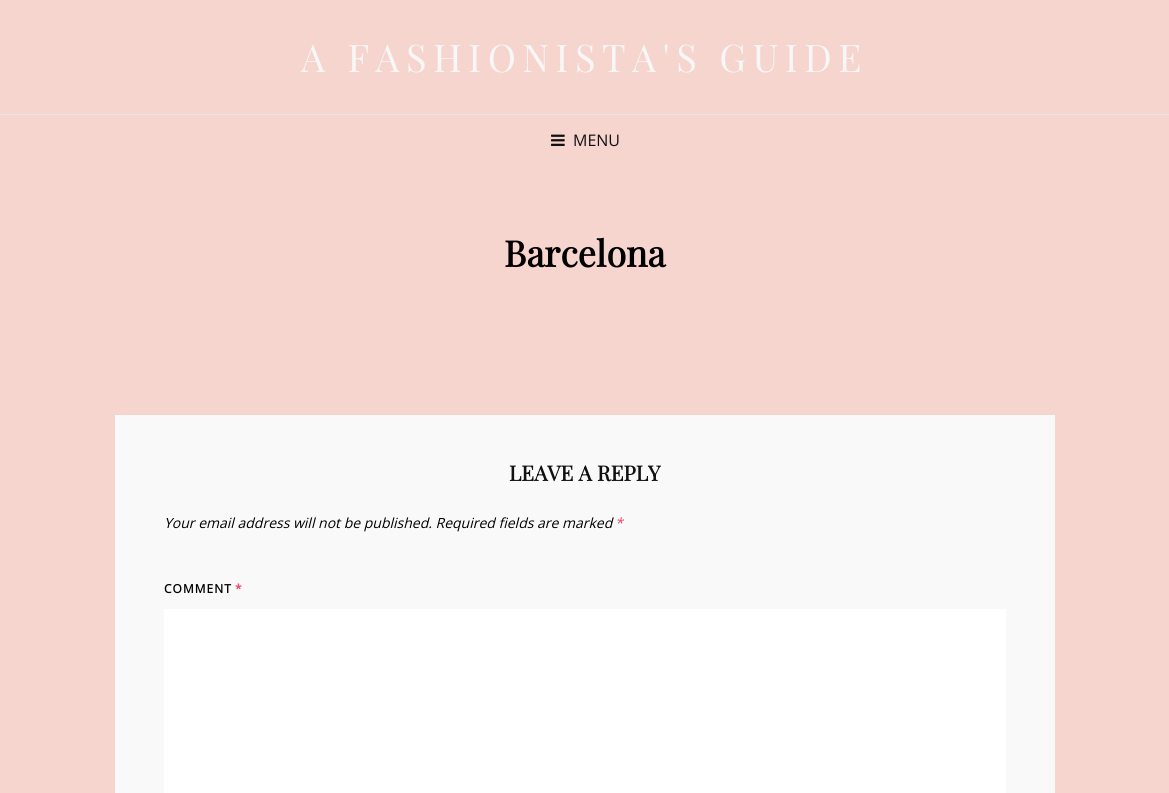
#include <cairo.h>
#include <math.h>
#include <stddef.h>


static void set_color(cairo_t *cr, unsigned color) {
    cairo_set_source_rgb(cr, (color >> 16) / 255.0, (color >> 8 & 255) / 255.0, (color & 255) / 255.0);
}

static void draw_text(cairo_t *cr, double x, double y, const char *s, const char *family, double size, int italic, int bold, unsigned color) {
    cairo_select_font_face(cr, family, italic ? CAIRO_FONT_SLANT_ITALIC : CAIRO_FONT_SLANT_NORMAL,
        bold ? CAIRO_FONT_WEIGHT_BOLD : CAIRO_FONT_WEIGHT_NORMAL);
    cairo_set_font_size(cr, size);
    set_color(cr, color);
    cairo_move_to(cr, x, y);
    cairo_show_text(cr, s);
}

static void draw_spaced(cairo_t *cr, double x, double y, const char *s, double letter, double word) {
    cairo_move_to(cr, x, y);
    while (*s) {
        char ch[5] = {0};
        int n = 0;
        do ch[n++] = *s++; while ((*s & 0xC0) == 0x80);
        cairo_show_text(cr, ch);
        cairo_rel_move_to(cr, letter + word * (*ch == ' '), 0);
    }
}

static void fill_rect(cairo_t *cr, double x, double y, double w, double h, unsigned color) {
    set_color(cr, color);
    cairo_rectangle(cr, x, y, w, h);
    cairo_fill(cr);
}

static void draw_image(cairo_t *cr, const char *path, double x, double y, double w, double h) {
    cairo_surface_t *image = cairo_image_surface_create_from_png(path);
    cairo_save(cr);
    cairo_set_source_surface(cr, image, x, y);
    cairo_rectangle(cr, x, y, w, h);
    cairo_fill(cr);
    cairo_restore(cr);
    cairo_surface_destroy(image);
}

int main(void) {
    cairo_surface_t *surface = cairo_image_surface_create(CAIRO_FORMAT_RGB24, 1169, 793);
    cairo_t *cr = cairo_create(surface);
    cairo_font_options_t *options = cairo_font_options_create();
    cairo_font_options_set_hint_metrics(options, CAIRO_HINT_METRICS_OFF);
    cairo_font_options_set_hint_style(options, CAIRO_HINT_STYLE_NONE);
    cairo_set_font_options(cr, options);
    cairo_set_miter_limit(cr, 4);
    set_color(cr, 0xF7D5CF);
    cairo_paint(cr);
    cairo_select_font_face(cr, "Playfair Display", CAIRO_FONT_SLANT_NORMAL, CAIRO_FONT_WEIGHT_NORMAL);
    cairo_set_font_size(cr, 38);
    set_color(cr, 0xF7F7F7);
    draw_spaced(cr, 301, 72, "A FASHIONISTA'S GUIDE", 6.5, 0);
    fill_rect(cr, 0, 114, 1169, 1, 0xE6E6E6);
    draw_image(cr, "assets/img1.png", 551, 134, 14, 12);
    draw_text(cr, 573, 146, "MENU", "Open Sans", 16, 0, 0, 0x111111);
    draw_text(cr, 504, 267, "Barcelona", "Playfair Display", 36, 0, 1, 0x000000);
    fill_rect(cr, 115, 415, 940, 378, 0xF9F9F9);
    draw_text(cr, 509, 481, "LEAVE A REPLY", "Playfair Display", 21, 0, 1, 0x111111);
    draw_text(cr, 164, 528, "Your email address will not be published. Required fields are marked", "Open Sans", 14, 1, 0, 0x000000);
    draw_text(cr, 615, 528, "*", "Open Sans", 14, 1, 0, 0xFB3A64);
    cairo_select_font_face(cr, "Open Sans", CAIRO_FONT_SLANT_NORMAL, CAIRO_FONT_WEIGHT_BOLD);
    cairo_set_font_size(cr, 12);
    set_color(cr, 0x000000);
    draw_spaced(cr, 164, 593, "COMMENT", 1, 0);
    set_color(cr, 0xFB3A64);
    draw_spaced(cr, 235, 593, "*", 1, 0);
    fill_rect(cr, 164, 609, 842, 184, 0xFFFFFF);
    cairo_surface_write_to_png(surface, "output.png");
    cairo_font_options_destroy(options);
    cairo_destroy(cr);
    cairo_surface_destroy(surface);
    return 0;
}
